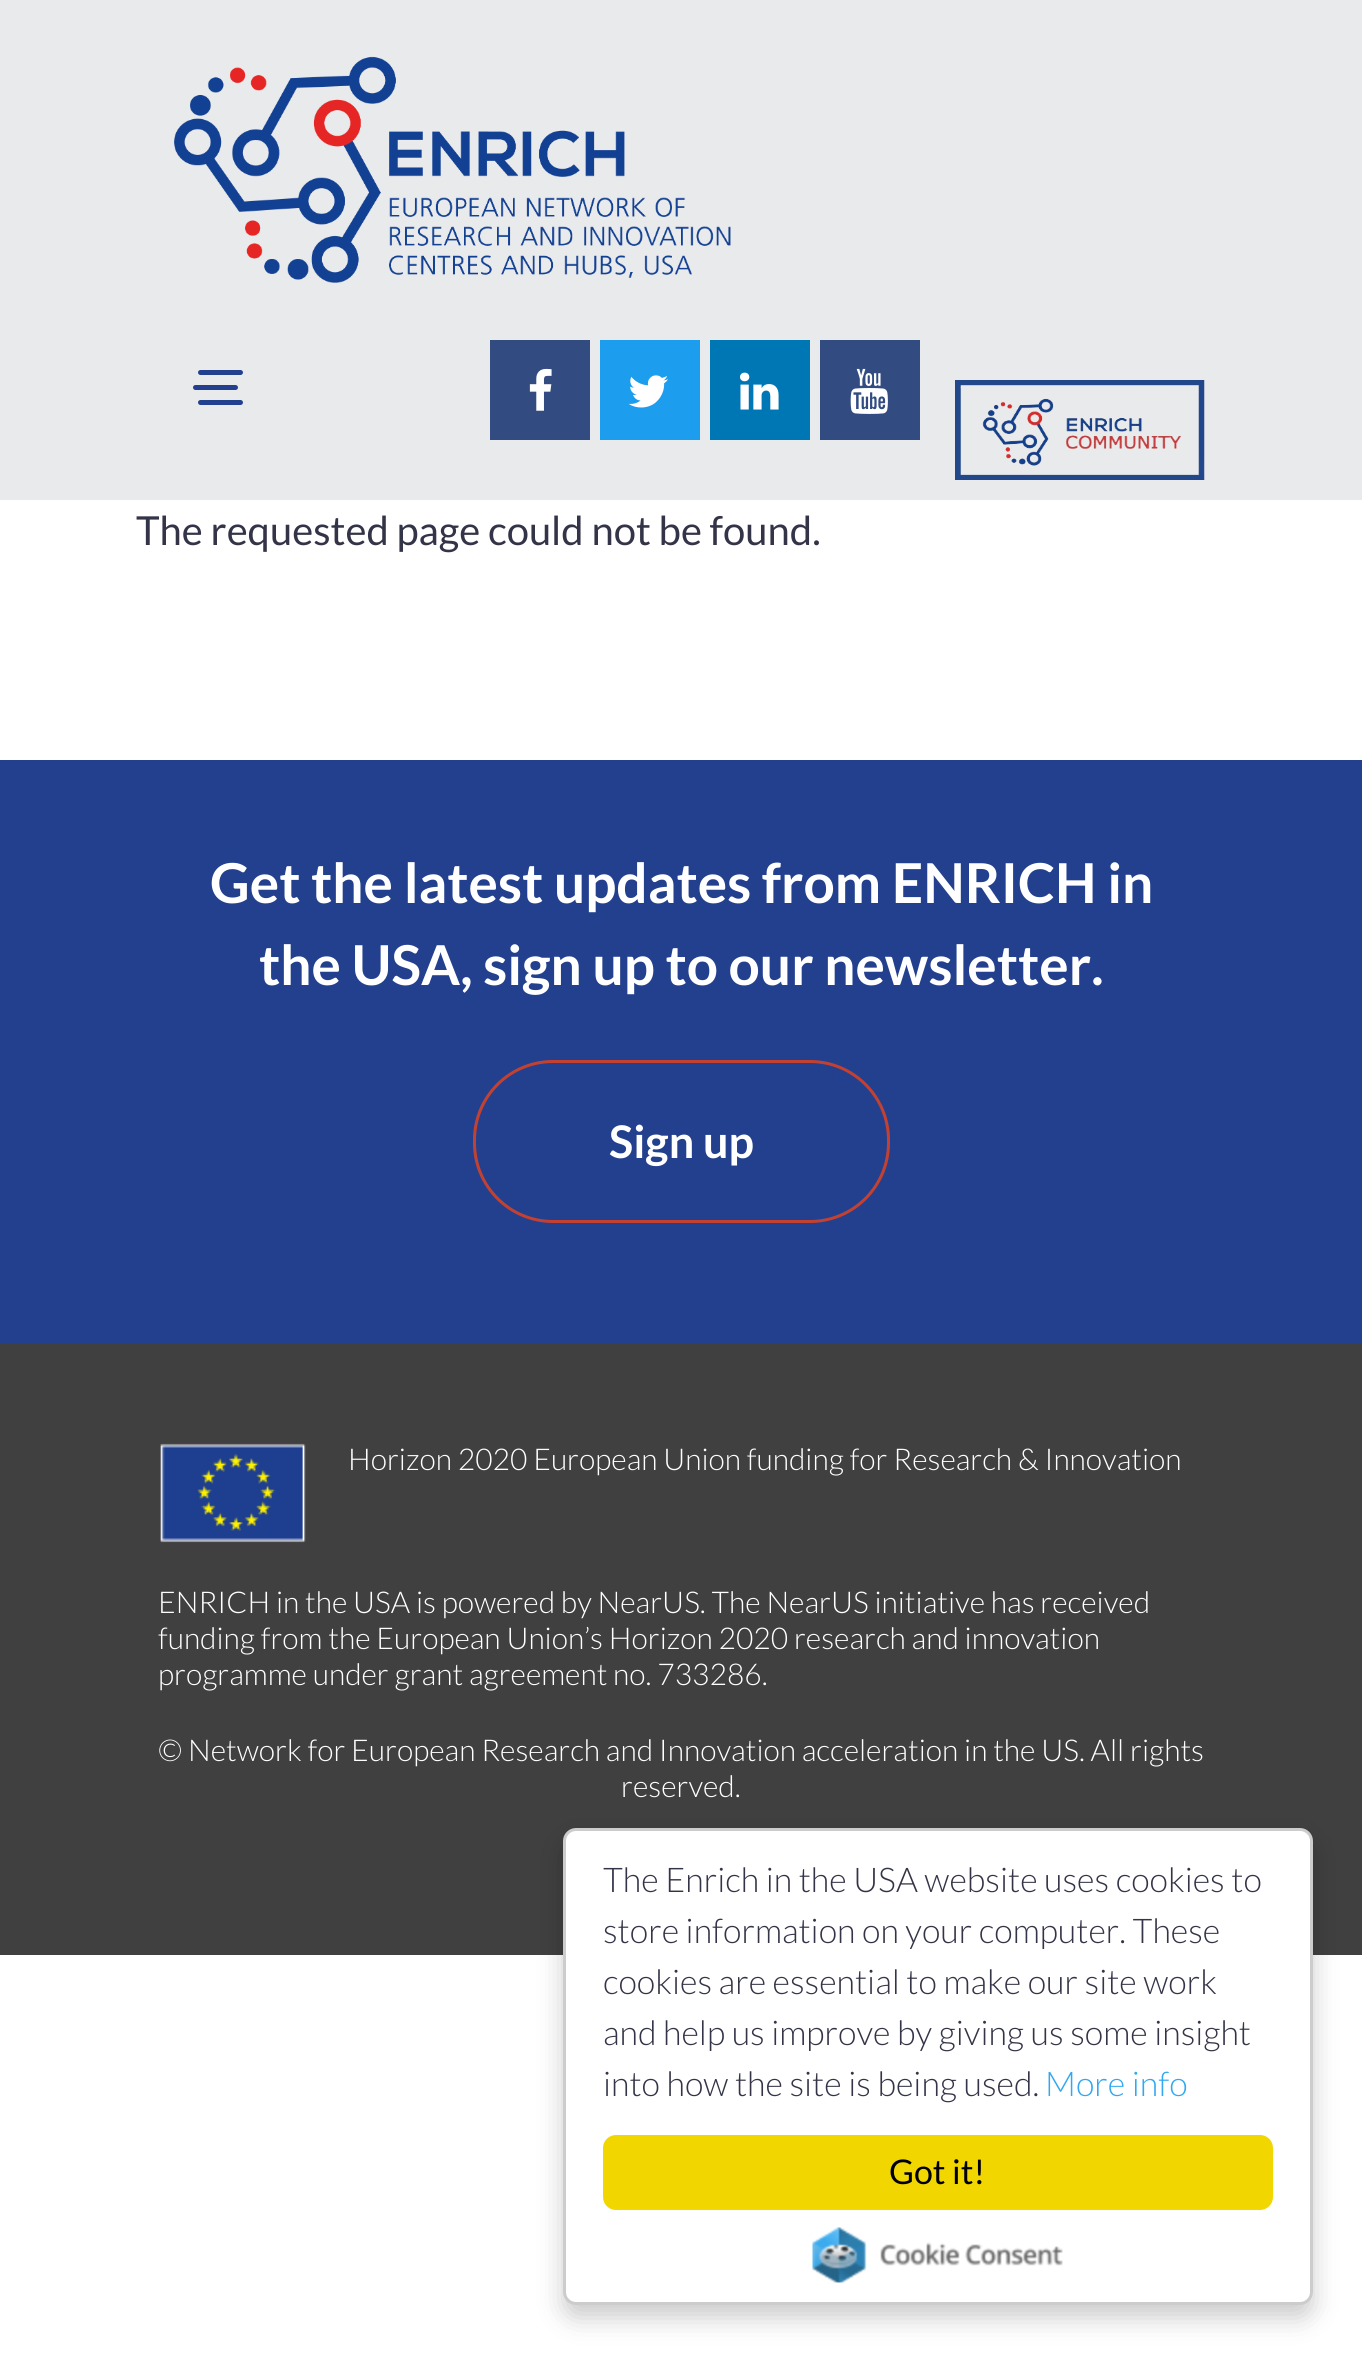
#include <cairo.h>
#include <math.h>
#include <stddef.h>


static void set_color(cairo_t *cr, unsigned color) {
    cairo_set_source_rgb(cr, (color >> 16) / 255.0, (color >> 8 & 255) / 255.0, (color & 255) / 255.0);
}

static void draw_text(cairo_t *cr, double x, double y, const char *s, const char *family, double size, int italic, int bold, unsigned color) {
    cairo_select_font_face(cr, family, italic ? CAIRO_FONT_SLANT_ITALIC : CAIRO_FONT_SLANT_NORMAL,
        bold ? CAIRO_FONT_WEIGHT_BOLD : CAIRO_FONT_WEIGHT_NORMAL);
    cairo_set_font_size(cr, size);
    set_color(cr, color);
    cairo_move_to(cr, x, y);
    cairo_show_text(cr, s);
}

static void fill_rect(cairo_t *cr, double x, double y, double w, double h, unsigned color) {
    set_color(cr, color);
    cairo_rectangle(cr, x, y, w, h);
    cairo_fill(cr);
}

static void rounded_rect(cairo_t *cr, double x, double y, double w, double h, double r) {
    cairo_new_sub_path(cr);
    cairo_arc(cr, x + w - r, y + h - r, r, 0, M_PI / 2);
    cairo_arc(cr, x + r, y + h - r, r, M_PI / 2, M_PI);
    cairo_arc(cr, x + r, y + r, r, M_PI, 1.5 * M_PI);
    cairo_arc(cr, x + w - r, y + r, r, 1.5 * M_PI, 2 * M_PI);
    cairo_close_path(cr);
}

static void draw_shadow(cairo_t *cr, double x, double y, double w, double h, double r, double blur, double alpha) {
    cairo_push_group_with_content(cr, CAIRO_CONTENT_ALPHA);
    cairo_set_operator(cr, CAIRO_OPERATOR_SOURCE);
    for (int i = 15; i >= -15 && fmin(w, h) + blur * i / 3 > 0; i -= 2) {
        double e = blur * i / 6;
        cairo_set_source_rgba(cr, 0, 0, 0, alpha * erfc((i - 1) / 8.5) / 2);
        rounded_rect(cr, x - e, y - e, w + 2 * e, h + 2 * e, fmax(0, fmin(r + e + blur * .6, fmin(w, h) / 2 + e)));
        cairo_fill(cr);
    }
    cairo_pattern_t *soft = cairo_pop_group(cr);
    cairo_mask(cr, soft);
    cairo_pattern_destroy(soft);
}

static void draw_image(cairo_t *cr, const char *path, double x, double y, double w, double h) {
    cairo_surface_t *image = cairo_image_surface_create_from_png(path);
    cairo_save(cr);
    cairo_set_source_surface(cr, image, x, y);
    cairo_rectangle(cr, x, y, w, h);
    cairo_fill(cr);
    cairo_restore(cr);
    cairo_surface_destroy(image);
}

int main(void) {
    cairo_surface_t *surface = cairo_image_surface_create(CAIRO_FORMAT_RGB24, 1362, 2354);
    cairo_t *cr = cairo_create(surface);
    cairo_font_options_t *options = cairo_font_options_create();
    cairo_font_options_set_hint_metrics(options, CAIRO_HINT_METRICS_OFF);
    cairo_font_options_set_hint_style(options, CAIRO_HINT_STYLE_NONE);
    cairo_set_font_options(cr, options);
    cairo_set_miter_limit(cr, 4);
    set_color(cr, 0xFFFFFF);
    cairo_paint(cr);
    fill_rect(cr, 0, 0, 1362, 500, 0xE9EAEB);
    draw_image(cr, "assets/img1.png", 174, 56, 557, 227);
    set_color(cr, 0x23408F);
    rounded_rect(cr, 198, 370, 45, 5, 2.5);
    cairo_fill(cr);
    rounded_rect(cr, 193, 385, 45, 5, 2.5);
    cairo_fill(cr);
    rounded_rect(cr, 198, 400, 45, 5, 2.5);
    cairo_fill(cr);
    fill_rect(cr, 490, 340, 100, 100, 0x324B80);
    draw_image(cr, "assets/img2.png", 529, 368, 23, 43);
    fill_rect(cr, 600, 340, 100, 100, 0x1C9DED);
    draw_image(cr, "assets/img3.png", 628, 375, 40, 33);
    fill_rect(cr, 710, 340, 100, 100, 0x0077B5);
    draw_image(cr, "assets/img4.png", 740, 372, 39, 38);
    fill_rect(cr, 820, 340, 100, 100, 0x324B80);
    draw_image(cr, "assets/img5.png", 850, 368, 38, 46);
    draw_image(cr, "assets/img6.png", 955, 380, 250, 100);
    draw_text(cr, 136, 545, "The requested page could not be found.", "Lato", 40, 0, 0, 0x333447);
    fill_rect(cr, 0, 760, 1362, 583, 0x23408F);
    draw_text(cr, 210, 903, "Get the latest updates from ENRICH in", "Lato", 55, 0, 1, 0xFFFFFF);
    draw_text(cr, 259, 985, "the USA, sign up to our newsletter.", "Lato", 55, 0, 1, 0xFFFFFF);
    rounded_rect(cr, 474.5, 1061.5, 414, 160, 78.5);
    set_color(cr, 0xC34131);
    cairo_set_line_width(cr, 3);
    cairo_stroke(cr);
    draw_text(cr, 609, 1158, "Sign up", "Lato", 45, 0, 1, 0xFFFFFF);
    fill_rect(cr, 0, 1343, 1362, 612, 0x404041);
    draw_image(cr, "assets/img7.png", 160, 1443, 146, 100);
    draw_text(cr, 348, 1470, "Horizon 2020 European Union funding for Research & Innovation", "Lato Light", 30, 0, 0, 0xFFFFFF);
    draw_text(cr, 158, 1613, "ENRICH in the USA is powered by NearUS. The NearUS initiative has received", "Lato Light", 30, 0, 0, 0xFFFFFF);
    draw_text(cr, 158, 1649, "funding from the European Union’s Horizon 2020 research and innovation", "Lato Light", 30, 0, 0, 0xFFFFFF);
    draw_text(cr, 158, 1685, "programme under grant agreement no. 733286.", "Lato Light", 30, 0, 0, 0xFFFFFF);
    draw_text(cr, 158, 1761, "© Network for European Research and Innovation acceleration in the US. All rights", "Lato Light", 30, 0, 0, 0xFFFFFF);
    draw_text(cr, 621, 1797, "reserved.", "Lato Light", 30, 0, 0, 0xFFFFFF);
    set_color(cr, 0x000000);
    draw_shadow(cr, 563, 1840, 750, 478, 13, 12.5, 0.2);
    set_color(cr, 0xFFFFFF);
    rounded_rect(cr, 564.5, 1829.5, 747, 474, 11.5);
    cairo_fill_preserve(cr);
    set_color(cr, 0xCCCCCC);
    cairo_stroke(cr);
    draw_text(cr, 603, 1892, "The Enrich in the USA website uses cookies to", "Lato Light", 34, 0, 0, 0x333447);
    draw_text(cr, 603, 1943, "store information on your computer. These", "Lato Light", 34, 0, 0, 0x333447);
    draw_text(cr, 603, 1994, "cookies are essential to make our site work", "Lato Light", 34, 0, 0, 0x333447);
    draw_text(cr, 603, 2045, "and help us improve by giving us some insight", "Lato Light", 34, 0, 0, 0x333447);
    draw_text(cr, 603, 2096, "into how the site is being used.", "Lato Light", 34, 0, 0, 0x333447);
    draw_text(cr, 1045, 2096, "More info", "Lato Light", 34, 0, 0, 0x31A8F0);
    set_color(cr, 0xF1D600);
    rounded_rect(cr, 603, 2135, 670, 75, 13);
    cairo_fill(cr);
    draw_text(cr, 889, 2184, "Got it!", "Lato", 34, 0, 0, 0x000000);
    draw_image(cr, "assets/img8.png", 812, 2227, 251, 56);
    cairo_surface_write_to_png(surface, "output.png");
    cairo_font_options_destroy(options);
    cairo_destroy(cr);
    cairo_surface_destroy(surface);
    return 0;
}
